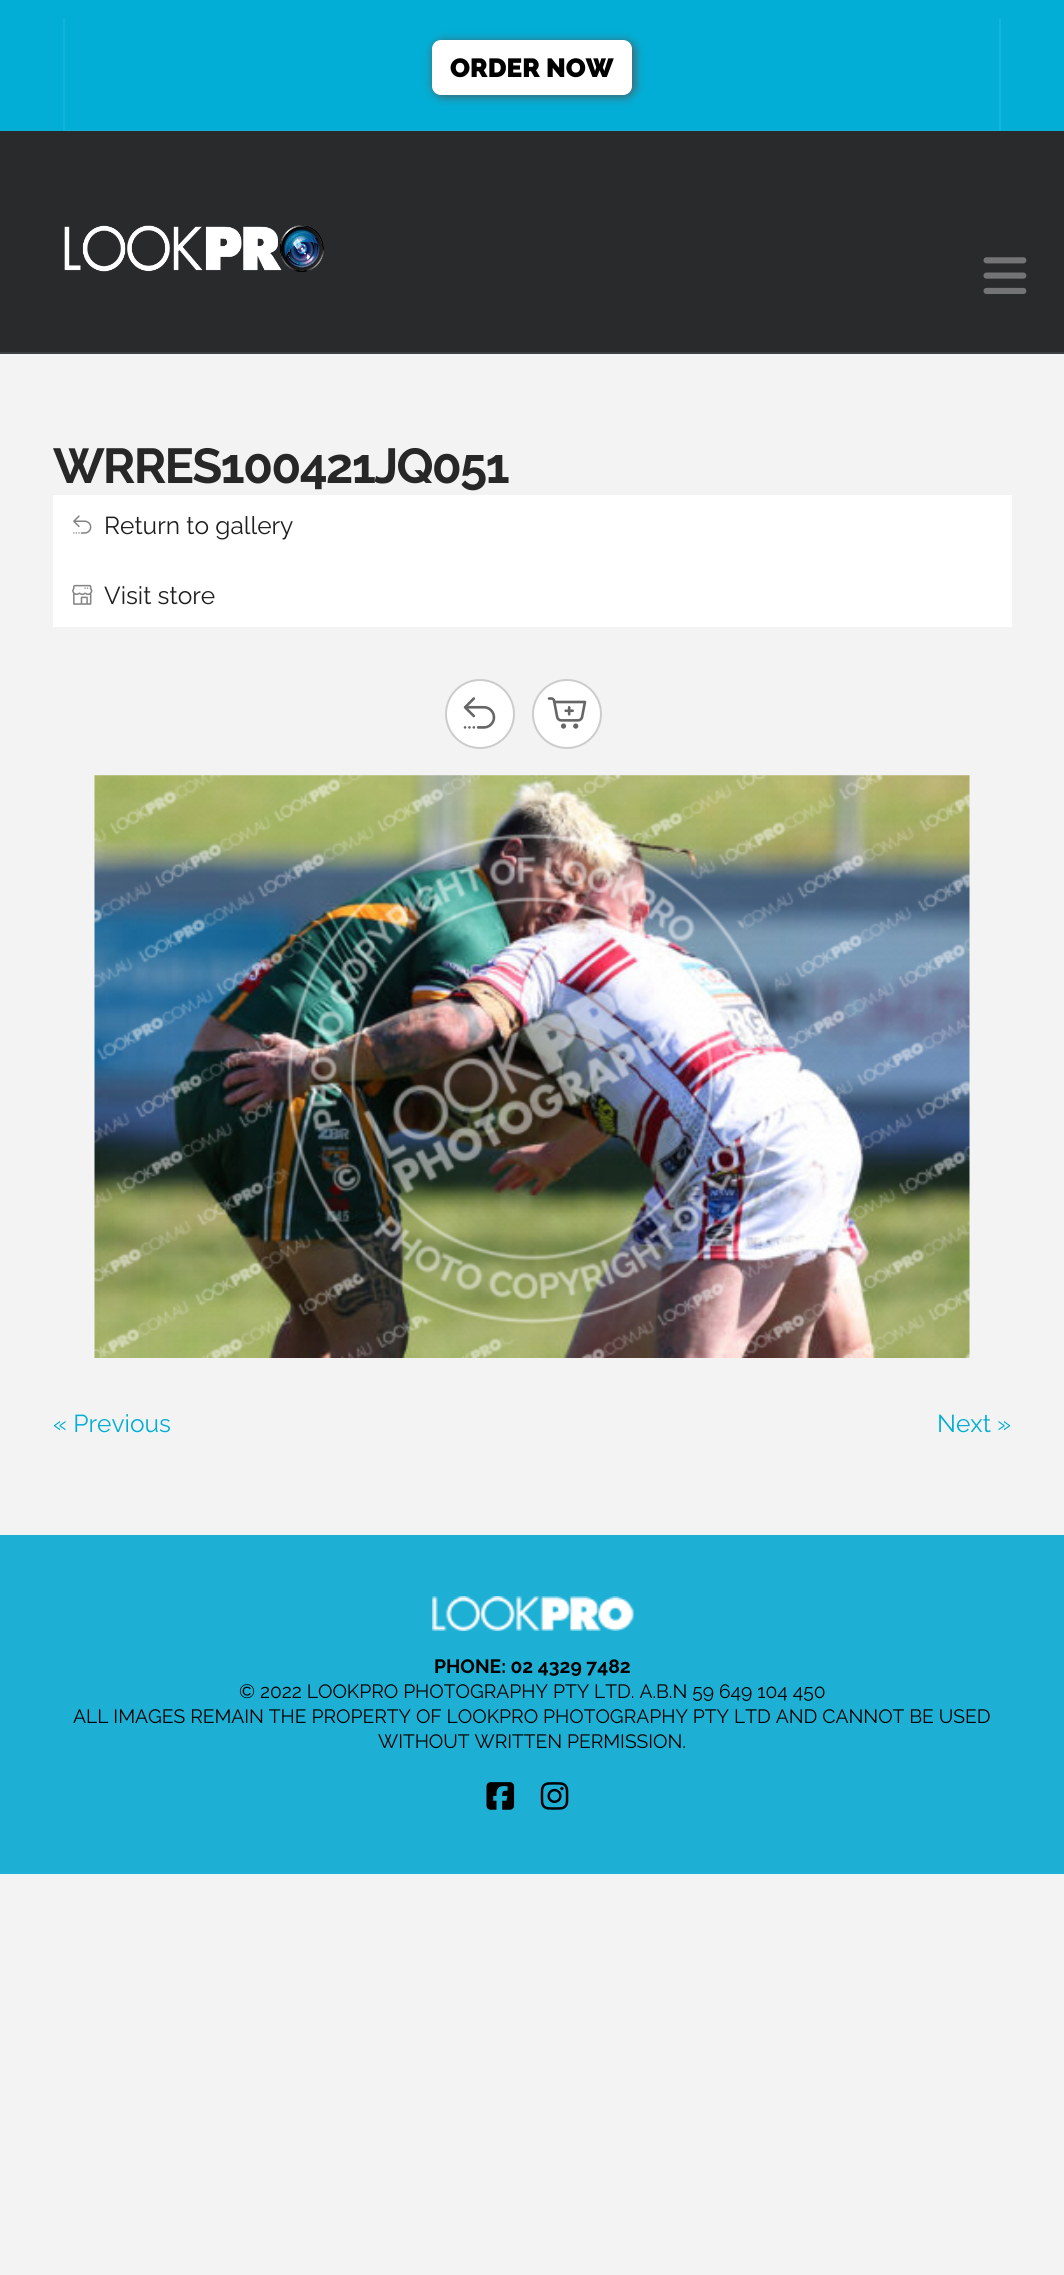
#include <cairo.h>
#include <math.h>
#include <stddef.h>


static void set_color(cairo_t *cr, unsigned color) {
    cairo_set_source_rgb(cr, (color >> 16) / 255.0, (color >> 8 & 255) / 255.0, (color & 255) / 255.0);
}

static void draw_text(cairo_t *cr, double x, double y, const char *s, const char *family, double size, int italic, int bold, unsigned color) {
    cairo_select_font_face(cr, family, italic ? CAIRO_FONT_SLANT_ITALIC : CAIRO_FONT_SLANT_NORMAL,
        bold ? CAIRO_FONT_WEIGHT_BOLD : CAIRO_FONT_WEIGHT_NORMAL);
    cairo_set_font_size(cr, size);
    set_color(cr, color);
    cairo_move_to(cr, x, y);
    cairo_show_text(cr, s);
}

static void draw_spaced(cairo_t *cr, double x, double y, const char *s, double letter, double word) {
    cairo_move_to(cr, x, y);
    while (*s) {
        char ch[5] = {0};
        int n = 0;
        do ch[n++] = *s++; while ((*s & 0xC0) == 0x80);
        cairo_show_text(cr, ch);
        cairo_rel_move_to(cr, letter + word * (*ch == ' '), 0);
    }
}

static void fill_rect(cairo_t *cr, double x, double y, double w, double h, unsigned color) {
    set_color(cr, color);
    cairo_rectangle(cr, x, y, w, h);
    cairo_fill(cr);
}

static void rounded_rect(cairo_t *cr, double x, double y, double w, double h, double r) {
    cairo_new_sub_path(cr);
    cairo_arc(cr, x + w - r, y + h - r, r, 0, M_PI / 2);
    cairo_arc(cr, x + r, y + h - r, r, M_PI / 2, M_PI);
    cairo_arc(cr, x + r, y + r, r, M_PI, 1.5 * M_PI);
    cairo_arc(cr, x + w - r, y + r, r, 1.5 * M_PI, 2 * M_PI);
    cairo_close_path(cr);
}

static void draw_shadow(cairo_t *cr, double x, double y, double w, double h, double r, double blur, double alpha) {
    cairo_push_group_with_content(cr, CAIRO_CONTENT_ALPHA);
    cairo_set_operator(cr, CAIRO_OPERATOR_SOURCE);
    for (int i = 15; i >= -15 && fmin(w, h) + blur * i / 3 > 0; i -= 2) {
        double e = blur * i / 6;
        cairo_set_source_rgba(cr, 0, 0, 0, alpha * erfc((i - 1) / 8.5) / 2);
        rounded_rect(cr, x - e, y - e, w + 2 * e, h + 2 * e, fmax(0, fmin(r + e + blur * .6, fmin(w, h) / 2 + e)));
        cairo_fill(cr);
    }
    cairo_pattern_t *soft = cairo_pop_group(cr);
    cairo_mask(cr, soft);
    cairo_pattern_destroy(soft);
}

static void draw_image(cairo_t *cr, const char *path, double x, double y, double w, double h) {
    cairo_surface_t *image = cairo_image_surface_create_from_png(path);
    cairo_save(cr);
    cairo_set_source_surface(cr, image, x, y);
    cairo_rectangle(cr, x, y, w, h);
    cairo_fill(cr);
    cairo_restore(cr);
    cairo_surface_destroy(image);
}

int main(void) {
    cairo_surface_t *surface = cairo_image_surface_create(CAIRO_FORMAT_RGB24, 1064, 2275);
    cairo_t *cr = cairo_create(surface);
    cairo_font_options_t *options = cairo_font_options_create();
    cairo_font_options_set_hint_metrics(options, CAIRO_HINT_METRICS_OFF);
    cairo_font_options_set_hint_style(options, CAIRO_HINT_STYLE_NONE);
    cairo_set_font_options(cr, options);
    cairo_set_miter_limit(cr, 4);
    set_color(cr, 0xF3F3F3);
    cairo_paint(cr);
    fill_rect(cr, 0, 0, 1064, 131, 0x02AED6);
    set_color(cr, 0x15B4D9);
    cairo_new_path(cr);
    cairo_move_to(cr, 1001, 18);
    cairo_line_to(cr, 1001, 131);
    cairo_line_to(cr, 999, 130);
    cairo_line_to(cr, 999, 18);
    cairo_close_path(cr);
    cairo_fill(cr);
    cairo_set_source_rgba(cr, 1, 1, 1, 0.07);
    cairo_new_path(cr);
    cairo_move_to(cr, 1001, 131);
    cairo_line_to(cr, 63, 131);
    cairo_line_to(cr, 65, 130);
    cairo_line_to(cr, 999, 130);
    cairo_close_path(cr);
    cairo_fill(cr);
    cairo_new_path(cr);
    cairo_move_to(cr, 63, 131);
    cairo_line_to(cr, 63, 18);
    cairo_line_to(cr, 65, 18);
    cairo_line_to(cr, 65, 130);
    cairo_close_path(cr);
    cairo_fill(cr);
    set_color(cr, 0x555555);
    draw_shadow(cr, 434, 42, 200, 54, 9, 5, 1);
    set_color(cr, 0xFFFFFF);
    rounded_rect(cr, 432, 40, 200, 55, 9);
    cairo_fill(cr);
    draw_text(cr, 450, 77, "ORDER NOW", "Raleway Black", 26.25, 0, 0, 0x000000);
    fill_rect(cr, 0, 131, 1064, 221, 0x292A2C);
    fill_rect(cr, 0, 352, 1064, 2, 0x3E3F41);
    draw_image(cr, "assets/img1.png", 64, 225, 260, 47);
    draw_image(cr, "assets/img2.png", 983, 257, 44, 37);
    cairo_select_font_face(cr, "Raleway", CAIRO_FONT_SLANT_NORMAL, CAIRO_FONT_WEIGHT_BOLD);
    cairo_set_font_size(cr, 49);
    set_color(cr, 0x272727);
    draw_spaced(cr, 53, 483, "WRRES100421JQ051", -1.75, 0);
    fill_rect(cr, 53, 495, 959, 132, 0xFFFFFF);
    draw_image(cr, "assets/img3.png", 73, 515, 19, 19);
    draw_text(cr, 104, 534, "Return to gallery", "Raleway", 24.5, 0, 0, 0x1F1F1F);
    draw_image(cr, "assets/img4.png", 72, 584, 21, 21);
    draw_text(cr, 104, 604, "Visit store", "Raleway", 24.5, 0, 0, 0x1F1F1F);
    set_color(cr, 0xFFFFFF);
    cairo_new_path(cr);
    cairo_arc(cr, 480, 714, 34, 0, 2 * M_PI);
    cairo_fill_preserve(cr);
    set_color(cr, 0xCCCCCC);
    cairo_stroke(cr);
    draw_image(cr, "assets/img5.png", 463, 697, 33, 32);
    set_color(cr, 0xFFFFFF);
    cairo_arc(cr, 567, 714, 34, 0, 2 * M_PI);
    cairo_fill_preserve(cr);
    set_color(cr, 0xCCCCCC);
    cairo_stroke(cr);
    draw_image(cr, "assets/img6.png", 547, 697, 40, 32);
    draw_image(cr, "assets/img7.png", 94, 775, 876, 583);
    draw_text(cr, 53, 1432, "« Previous", "Raleway", 24.5, 0, 0, 0x02AED6);
    draw_text(cr, 937, 1432, "Next »", "Raleway", 24.5, 0, 0, 0x02AED6);
    fill_rect(cr, 0, 1535, 1064, 339, 0x1DAFD4);
    draw_image(cr, "assets/img8.png", 432, 1596, 202, 35);
    draw_text(cr, 434, 1673, "PHONE: 02 4329 7482", "Raleway", 19.25, 0, 1, 0x000000);
    draw_text(cr, 239, 1698, "© 2022 LOOKPRO PHOTOGRAPHY PTY LTD. A.B.N 59 649 104 450", "Raleway", 19.25, 0, 0, 0x000000);
    draw_text(cr, 73, 1723, "ALL IMAGES REMAIN THE PROPERTY OF LOOKPRO PHOTOGRAPHY PTY LTD AND CANNOT BE USED", "Raleway", 19.25, 0, 0, 0x000000);
    draw_text(cr, 378, 1748, "WITHOUT WRITTEN PERMISSION.", "Raleway", 19.25, 0, 0, 0x000000);
    draw_image(cr, "assets/img9.png", 486, 1782, 29, 28);
    draw_image(cr, "assets/img10.png", 540, 1782, 29, 28);
    cairo_surface_write_to_png(surface, "output.png");
    cairo_font_options_destroy(options);
    cairo_destroy(cr);
    cairo_surface_destroy(surface);
    return 0;
}
